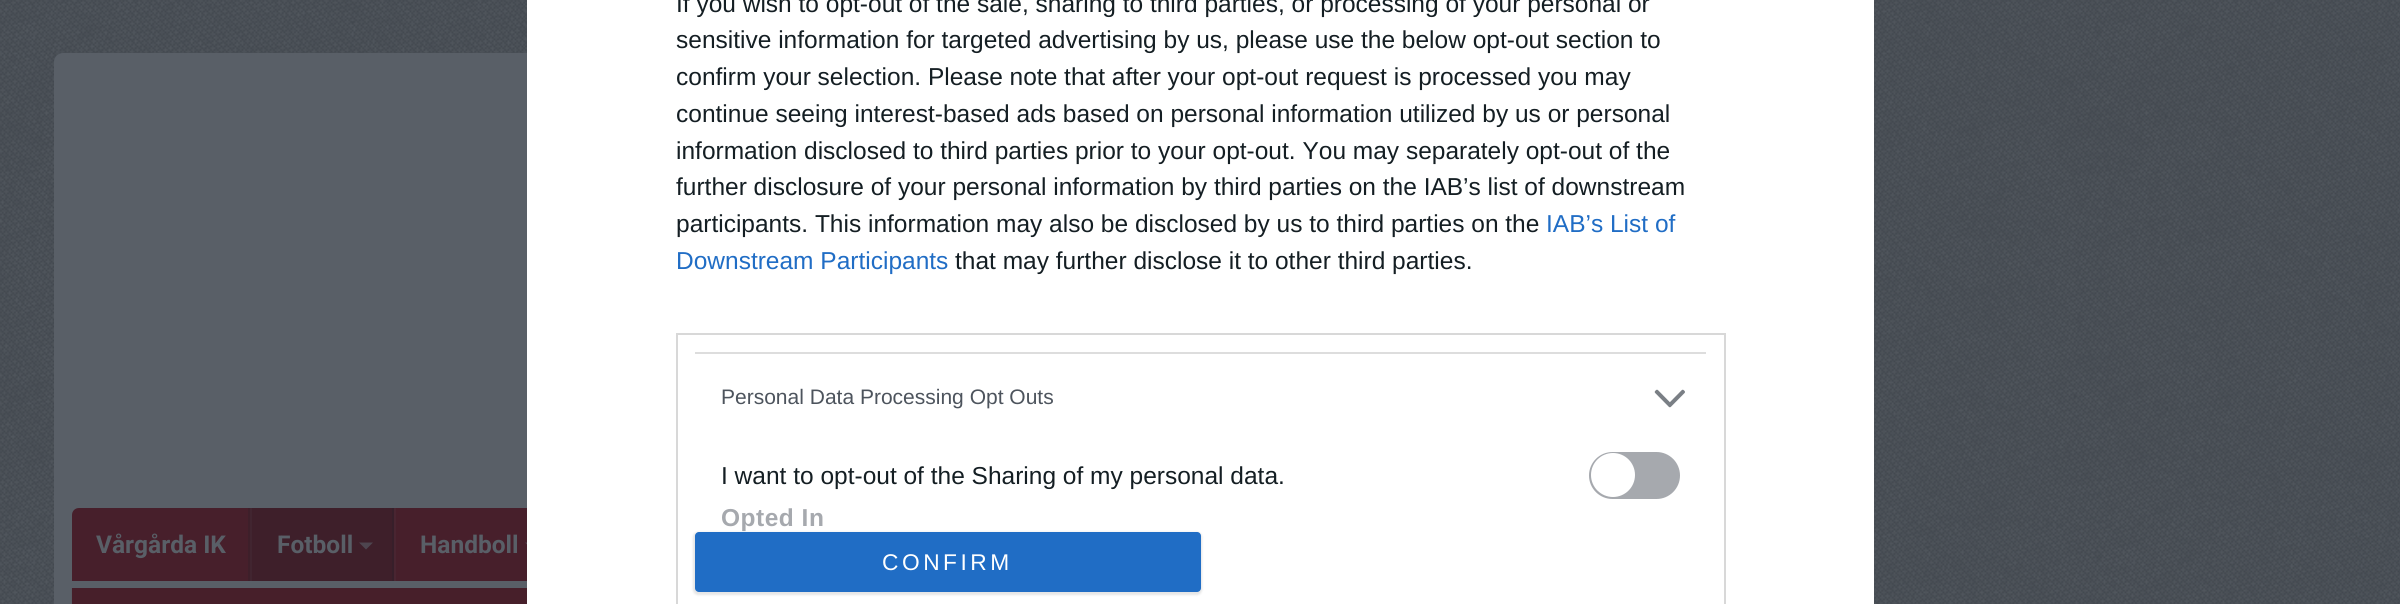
#include <cairo.h>
#include <math.h>
#include <stddef.h>


static void set_color(cairo_t *cr, unsigned color) {
    cairo_set_source_rgb(cr, (color >> 16) / 255.0, (color >> 8 & 255) / 255.0, (color & 255) / 255.0);
}

static void draw_text(cairo_t *cr, double x, double y, const char *s, const char *family, double size, int italic, int bold, unsigned color) {
    cairo_select_font_face(cr, family, italic ? CAIRO_FONT_SLANT_ITALIC : CAIRO_FONT_SLANT_NORMAL,
        bold ? CAIRO_FONT_WEIGHT_BOLD : CAIRO_FONT_WEIGHT_NORMAL);
    cairo_set_font_size(cr, size);
    set_color(cr, color);
    cairo_move_to(cr, x, y);
    cairo_show_text(cr, s);
}

static void draw_spaced(cairo_t *cr, double x, double y, const char *s, double letter, double word) {
    cairo_move_to(cr, x, y);
    while (*s) {
        char ch[5] = {0};
        int n = 0;
        do ch[n++] = *s++; while ((*s & 0xC0) == 0x80);
        cairo_show_text(cr, ch);
        cairo_rel_move_to(cr, letter + word * (*ch == ' '), 0);
    }
}

static void fill_rect(cairo_t *cr, double x, double y, double w, double h, unsigned color) {
    set_color(cr, color);
    cairo_rectangle(cr, x, y, w, h);
    cairo_fill(cr);
}

static void rounded_rect(cairo_t *cr, double x, double y, double w, double h, double r) {
    cairo_new_sub_path(cr);
    cairo_arc(cr, x + w - r, y + h - r, r, 0, M_PI / 2);
    cairo_arc(cr, x + r, y + h - r, r, M_PI / 2, M_PI);
    cairo_arc(cr, x + r, y + r, r, M_PI, 1.5 * M_PI);
    cairo_arc(cr, x + w - r, y + r, r, 1.5 * M_PI, 2 * M_PI);
    cairo_close_path(cr);
}

static void draw_shadow(cairo_t *cr, double x, double y, double w, double h, double r, double blur, double alpha) {
    cairo_push_group_with_content(cr, CAIRO_CONTENT_ALPHA);
    cairo_set_operator(cr, CAIRO_OPERATOR_SOURCE);
    for (int i = 15; i >= -15 && fmin(w, h) + blur * i / 3 > 0; i -= 2) {
        double e = blur * i / 6;
        cairo_set_source_rgba(cr, 0, 0, 0, alpha * erfc((i - 1) / 8.5) / 2);
        rounded_rect(cr, x - e, y - e, w + 2 * e, h + 2 * e, fmax(0, fmin(r + e + blur * .6, fmin(w, h) / 2 + e)));
        cairo_fill(cr);
    }
    cairo_pattern_t *soft = cairo_pop_group(cr);
    cairo_mask(cr, soft);
    cairo_pattern_destroy(soft);
}

static void draw_image(cairo_t *cr, const char *path, double x, double y, double w, double h) {
    cairo_surface_t *image = cairo_image_surface_create_from_png(path);
    cairo_save(cr);
    cairo_set_source_surface(cr, image, x, y);
    cairo_rectangle(cr, x, y, w, h);
    cairo_fill(cr);
    cairo_restore(cr);
    cairo_surface_destroy(image);
}

int main(void) {
    cairo_surface_t *surface = cairo_image_surface_create(CAIRO_FORMAT_RGB24, 2400, 604);
    cairo_t *cr = cairo_create(surface);
    cairo_font_options_t *options = cairo_font_options_create();
    cairo_font_options_set_hint_metrics(options, CAIRO_HINT_METRICS_OFF);
    cairo_font_options_set_hint_style(options, CAIRO_HINT_STYLE_NONE);
    cairo_set_font_options(cr, options);
    cairo_set_miter_limit(cr, 4);
    set_color(cr, 0xFFFFFF);
    cairo_paint(cr);
    draw_image(cr, "assets/img1.png", 0, 0, 2400, 604);
    set_color(cr, 0x595F67);
    cairo_new_path(cr);
    cairo_move_to(cr, 63, 53);
    cairo_line_to(cr, 1795, 53);
    cairo_curve_to(cr, 1800, 53, 1804, 57, 1804, 62);
    cairo_line_to(cr, 1804, 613);
    cairo_line_to(cr, 54, 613);
    cairo_line_to(cr, 54, 62);
    cairo_curve_to(cr, 54, 57, 58, 53, 63, 53);
    cairo_close_path(cr);
    cairo_fill(cr);
    set_color(cr, 0x471F2B);
    cairo_new_path(cr);
    cairo_move_to(cr, 79, 508);
    cairo_line_to(cr, 1780, 508);
    cairo_curve_to(cr, 1784, 508, 1787, 511, 1787, 515);
    cairo_line_to(cr, 1787, 581);
    cairo_line_to(cr, 72, 581);
    cairo_line_to(cr, 72, 515);
    cairo_curve_to(cr, 72, 511, 75, 508, 79, 508);
    cairo_close_path(cr);
    cairo_fill(cr);
    fill_rect(cr, 248, 508, 2, 73, 0x3E1F2A);
    draw_text(cr, 96, 553, "Vårgårda IK", "Roboto", 24.5, 0, 1, 0x595F67);
    fill_rect(cr, 252, 508, 140, 73, 0x3E1F2A);
    fill_rect(cr, 392, 508, 2, 73, 0x371F2A);
    fill_rect(cr, 250, 508, 2, 73, 0x412530);
    draw_text(cr, 277, 553, "Fotboll", "Roboto", 24.5, 0, 1, 0x595F67);
    set_color(cr, 0x4E454F);
    cairo_new_path(cr);
    cairo_move_to(cr, 359, 542.5);
    cairo_line_to(cr, 373, 542.5);
    cairo_line_to(cr, 366, 549.5);
    cairo_close_path(cr);
    cairo_fill(cr);
    fill_rect(cr, 394, 508, 2, 73, 0x492531);
    draw_text(cr, 420, 553, "Handboll", "Roboto", 24.5, 0, 1, 0x595F67);
    set_color(cr, 0x52454F);
    cairo_new_path(cr);
    cairo_move_to(cr, 525, 542.5);
    cairo_line_to(cr, 539, 542.5);
    cairo_line_to(cr, 532, 549.5);
    cairo_close_path(cr);
    cairo_fill(cr);
    draw_image(cr, "assets/img2.png", 71, 588, 456, 16);
    fill_rect(cr, 527, 0, 1347, 604, 0xFFFFFF);
    draw_text(cr, 676, 12, "If you wish to opt-out of the sale, sharing to third parties, or processing of your personal or", "Liberation Sans", 24.5, 0, 0, 0x141E23);
    draw_text(cr, 676, 48, "sensitive information for targeted advertising by us, please use the below opt-out section to", "Liberation Sans", 24.5, 0, 0, 0x141E23);
    draw_text(cr, 676, 85, "confirm your selection. Please note that after your opt-out request is processed you may", "Liberation Sans", 24.5, 0, 0, 0x141E23);
    draw_text(cr, 676, 122, "continue seeing interest-based ads based on personal information utilized by us or personal", "Liberation Sans", 24.5, 0, 0, 0x141E23);
    draw_text(cr, 676, 159, "information disclosed to third parties prior to your opt-out. You may separately opt-out of the", "Liberation Sans", 24.5, 0, 0, 0x141E23);
    draw_text(cr, 676, 195, "further disclosure of your personal information by third parties on the IAB’s list of downstream", "Liberation Sans", 24.5, 0, 0, 0x141E23);
    draw_text(cr, 676, 232, "participants. This information may also be disclosed by us to third parties on the", "Liberation Sans", 24.5, 0, 0, 0x141E23);
    draw_text(cr, 1546, 232, "IAB’s List of", "Liberation Sans", 24.5, 0, 0, 0x206DC5);
    draw_text(cr, 676, 269, "Downstream Participants", "Liberation Sans", 24.5, 0, 0, 0x206DC5);
    draw_text(cr, 955, 269, "that may further disclose it to other third parties.", "Liberation Sans", 24.5, 0, 0, 0x141E23);
    cairo_rectangle(cr, 677, 334, 1048, 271);
    set_color(cr, 0xD8D8D8);
    cairo_stroke(cr);
    fill_rect(cr, 695, 352, 1011, 2, 0xDDDDDD);
    draw_text(cr, 721, 404, "Personal Data Processing Opt Outs", "Liberation Sans", 21, 0, 0, 0x4D545D);
    draw_image(cr, "assets/img3.png", 1654, 389, 31, 19);
    draw_text(cr, 721, 484, "I want to opt-out of the Sharing of my personal data.", "Liberation Sans", 24.5, 0, 0, 0x141E23);
    set_color(cr, 0xA6A9AE);
    rounded_rect(cr, 1590, 453, 89, 45, 22.5);
    cairo_fill_preserve(cr);
    cairo_stroke(cr);
    set_color(cr, 0xFFFFFF);
    cairo_arc(cr, 1613, 475, 22, 0, 2 * M_PI);
    cairo_fill(cr);
    cairo_select_font_face(cr, "Liberation Sans", CAIRO_FONT_SLANT_NORMAL, CAIRO_FONT_WEIGHT_BOLD);
    set_color(cr, 0xA6A9AE);
    draw_spaced(cr, 721, 526, "Opted In", 0.5, 0);
    set_color(cr, 0x000000);
    draw_shadow(cr, 693, 532, 509, 63, 5, 1, 0.1);
    set_color(cr, 0x206DC5);
    rounded_rect(cr, 695, 532, 506, 60, 4);
    cairo_fill(cr);
    cairo_select_font_face(cr, "Liberation Sans", CAIRO_FONT_SLANT_NORMAL, CAIRO_FONT_WEIGHT_NORMAL);
    cairo_set_font_size(cr, 22.75);
    set_color(cr, 0xFFFFFF);
    draw_spaced(cr, 882, 570, "CONFIRM", 3.5, 0);
    cairo_surface_write_to_png(surface, "output.png");
    cairo_font_options_destroy(options);
    cairo_destroy(cr);
    cairo_surface_destroy(surface);
    return 0;
}
